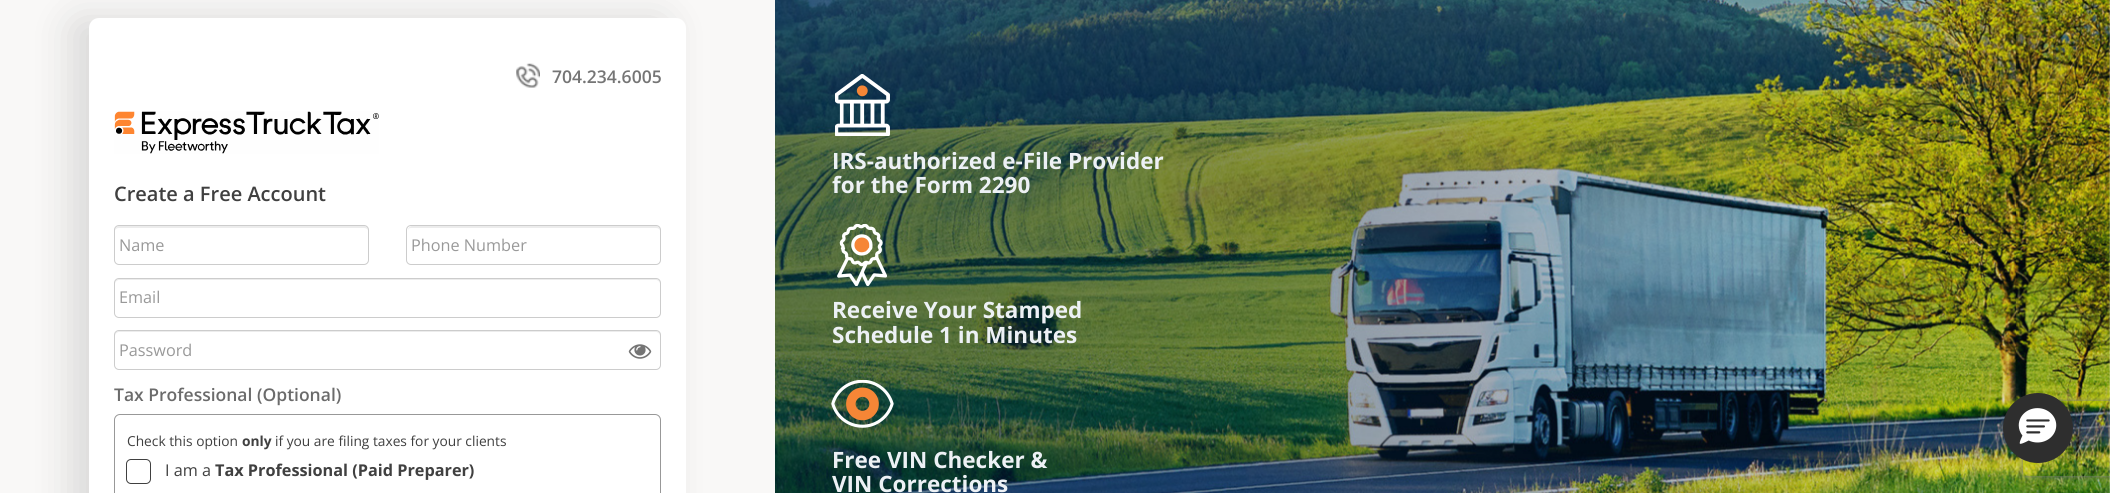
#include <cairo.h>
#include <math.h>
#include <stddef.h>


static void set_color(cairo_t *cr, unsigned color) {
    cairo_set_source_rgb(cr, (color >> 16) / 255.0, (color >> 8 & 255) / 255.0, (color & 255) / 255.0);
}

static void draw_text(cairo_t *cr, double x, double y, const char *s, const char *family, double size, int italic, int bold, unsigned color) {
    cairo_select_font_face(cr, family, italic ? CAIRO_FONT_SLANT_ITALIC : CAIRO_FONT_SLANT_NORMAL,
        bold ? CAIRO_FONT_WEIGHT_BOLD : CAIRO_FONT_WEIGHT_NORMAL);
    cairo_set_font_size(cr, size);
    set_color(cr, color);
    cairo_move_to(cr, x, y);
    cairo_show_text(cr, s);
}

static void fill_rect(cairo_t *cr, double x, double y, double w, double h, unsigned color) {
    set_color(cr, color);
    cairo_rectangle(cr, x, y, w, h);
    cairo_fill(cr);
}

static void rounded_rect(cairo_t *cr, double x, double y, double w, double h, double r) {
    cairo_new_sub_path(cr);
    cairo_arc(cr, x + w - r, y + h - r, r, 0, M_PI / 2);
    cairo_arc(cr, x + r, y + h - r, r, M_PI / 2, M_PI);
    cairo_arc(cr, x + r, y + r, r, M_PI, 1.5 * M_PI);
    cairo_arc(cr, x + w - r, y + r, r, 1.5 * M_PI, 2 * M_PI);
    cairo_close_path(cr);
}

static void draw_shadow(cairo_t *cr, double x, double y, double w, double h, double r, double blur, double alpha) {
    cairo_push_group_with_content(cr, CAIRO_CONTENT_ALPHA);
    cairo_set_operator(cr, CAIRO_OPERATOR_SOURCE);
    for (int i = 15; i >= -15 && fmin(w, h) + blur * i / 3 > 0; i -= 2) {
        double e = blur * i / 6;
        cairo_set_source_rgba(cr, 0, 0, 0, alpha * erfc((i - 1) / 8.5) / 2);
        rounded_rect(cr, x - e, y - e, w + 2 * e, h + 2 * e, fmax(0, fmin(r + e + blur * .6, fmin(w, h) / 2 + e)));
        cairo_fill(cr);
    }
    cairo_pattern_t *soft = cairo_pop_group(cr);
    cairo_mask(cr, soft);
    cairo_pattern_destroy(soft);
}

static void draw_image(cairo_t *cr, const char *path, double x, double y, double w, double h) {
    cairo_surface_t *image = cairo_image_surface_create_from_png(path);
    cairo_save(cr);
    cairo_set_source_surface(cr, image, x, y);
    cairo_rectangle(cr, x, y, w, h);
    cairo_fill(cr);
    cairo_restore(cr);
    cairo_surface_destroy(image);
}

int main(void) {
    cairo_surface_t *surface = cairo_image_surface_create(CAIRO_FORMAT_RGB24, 2110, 493);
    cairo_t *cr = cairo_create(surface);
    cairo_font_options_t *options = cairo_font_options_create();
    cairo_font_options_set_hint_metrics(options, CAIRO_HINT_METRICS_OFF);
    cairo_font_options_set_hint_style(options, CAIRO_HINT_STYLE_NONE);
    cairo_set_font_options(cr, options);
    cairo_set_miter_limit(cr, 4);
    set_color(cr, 0xFFFFFF);
    cairo_paint(cr);
    draw_image(cr, "assets/img1.png", 775, 0, 1335, 493);
    fill_rect(cr, 0, 0, 775, 493, 0xF9F8F7);
    set_color(cr, 0x949494);
    draw_shadow(cr, 70, 18, 598, 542, 10, 19, 0.3);
    set_color(cr, 0xFFFFFF);
    rounded_rect(cr, 89, 18, 597, 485, 10);
    cairo_fill(cr);
    draw_image(cr, "assets/img2.png", 516, 63, 24, 25);
    draw_text(cr, 552, 83, "704.234.6005", "Open Sans SemiBold", 17.5, 0, 0, 0x757575);
    draw_image(cr, "assets/img3.png", 114, 111, 265, 43);
    draw_text(cr, 114, 201, "Create a Free Account", "Open Sans SemiBold", 20, 0, 0, 0x404040);
    set_color(cr, 0xECECEC);
    cairo_new_path(cr);
    cairo_move_to(cr, 119, 228);
    cairo_line_to(cr, 364, 228);
    cairo_curve_to(cr, 366, 228, 368, 229, 368, 231);
    cairo_line_to(cr, 368, 230);
    cairo_curve_to(cr, 368, 228, 366, 226, 364, 226);
    cairo_line_to(cr, 119, 226);
    cairo_curve_to(cr, 117, 226, 115, 228, 115, 230);
    cairo_line_to(cr, 115, 231);
    cairo_curve_to(cr, 115, 229, 117, 228, 119, 228);
    cairo_close_path(cr);
    cairo_fill(cr);
    rounded_rect(cr, 114.5, 225.5, 254, 39, 4.5);
    set_color(cr, 0xCCCCCC);
    cairo_set_line_width(cr, 1);
    cairo_stroke(cr);
    draw_text(cr, 119, 251, "Name", "Open Sans", 16.25, 0, 0, 0x999999);
    set_color(cr, 0xECECEC);
    cairo_new_path(cr);
    cairo_move_to(cr, 411, 228);
    cairo_line_to(cr, 656, 228);
    cairo_curve_to(cr, 658, 228, 660, 229, 660, 231);
    cairo_line_to(cr, 660, 230);
    cairo_curve_to(cr, 660, 228, 658, 226, 656, 226);
    cairo_line_to(cr, 412, 226);
    cairo_curve_to(cr, 410, 226, 408, 228, 408, 230);
    cairo_line_to(cr, 408, 231);
    cairo_curve_to(cr, 408, 229, 409, 228, 411, 228);
    cairo_close_path(cr);
    cairo_fill(cr);
    rounded_rect(cr, 406.5, 225.5, 254, 39, 4.5);
    set_color(cr, 0xCCCCCC);
    cairo_stroke(cr);
    draw_text(cr, 411, 251, "Phone Number", "Open Sans", 16.25, 0, 0, 0x999999);
    set_color(cr, 0xECECEC);
    cairo_new_path(cr);
    cairo_move_to(cr, 119, 280);
    cairo_line_to(cr, 656, 280);
    cairo_curve_to(cr, 658, 280, 660, 282, 660, 284);
    cairo_line_to(cr, 660, 283);
    cairo_curve_to(cr, 660, 281, 658, 279, 656, 279);
    cairo_line_to(cr, 119, 279);
    cairo_curve_to(cr, 117, 279, 115, 281, 115, 283);
    cairo_line_to(cr, 115, 284);
    cairo_curve_to(cr, 115, 282, 117, 280, 119, 280);
    cairo_close_path(cr);
    cairo_fill(cr);
    rounded_rect(cr, 114.5, 278.5, 546, 39, 4.5);
    set_color(cr, 0xCCCCCC);
    cairo_stroke(cr);
    draw_text(cr, 119, 303, "Email", "Open Sans", 16.25, 0, 0, 0x999999);
    set_color(cr, 0xECECEC);
    cairo_new_path(cr);
    cairo_move_to(cr, 119, 332);
    cairo_line_to(cr, 656, 332);
    cairo_curve_to(cr, 658, 332, 660, 334, 660, 336);
    cairo_line_to(cr, 660, 335);
    cairo_curve_to(cr, 660, 333, 658, 331, 656, 331);
    cairo_line_to(cr, 119, 331);
    cairo_curve_to(cr, 117, 331, 115, 333, 115, 335);
    cairo_line_to(cr, 115, 336);
    cairo_curve_to(cr, 115, 334, 117, 332, 119, 332);
    cairo_close_path(cr);
    cairo_fill(cr);
    rounded_rect(cr, 114.5, 330.5, 546, 39, 4.5);
    set_color(cr, 0xCCCCCC);
    cairo_stroke(cr);
    draw_text(cr, 119, 356, "Password", "Open Sans", 16.25, 0, 0, 0x999999);
    draw_image(cr, "assets/img4.png", 628, 344, 24, 15);
    draw_text(cr, 114, 401, "Tax Professional (Optional)", "Open Sans SemiBold", 17.5, 0, 0, 0x6B6B6B);
    rounded_rect(cr, 114.5, 414.5, 546, 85, 5.5);
    set_color(cr, 0x989898);
    cairo_stroke(cr);
    draw_text(cr, 127, 446, "Check this option", "Open Sans", 13.75, 0, 0, 0x404040);
    draw_text(cr, 242, 446, "only", "Open Sans", 13.75, 0, 1, 0x404040);
    draw_text(cr, 275, 446, "if you are filing taxes for your clients", "Open Sans", 13.75, 0, 0, 0x404040);
    rounded_rect(cr, 126.5, 459.5, 24, 24, 4.5);
    cairo_stroke(cr);
    draw_text(cr, 165, 476, "I am a", "Open Sans", 16.25, 0, 0, 0x404040);
    draw_text(cr, 215, 476, "Tax Professional (Paid Preparer)", "Open Sans", 16.25, 0, 1, 0x404040);
    cairo_save(cr);
    cairo_set_fill_rule(cr, CAIRO_FILL_RULE_EVEN_ODD);
    cairo_new_path(cr);
    cairo_move_to(cr, 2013, 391);
    cairo_line_to(cr, 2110, 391);
    cairo_line_to(cr, 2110, 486);
    cairo_line_to(cr, 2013, 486);
    cairo_close_path(cr);
    cairo_move_to(cr, 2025.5, 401);
    cairo_line_to(cr, 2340.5, 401);
    cairo_curve_to(cr, 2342, 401, 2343, 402, 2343, 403.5);
    cairo_line_to(cr, 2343, 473.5);
    cairo_curve_to(cr, 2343, 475, 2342, 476, 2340.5, 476);
    cairo_line_to(cr, 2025.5, 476);
    cairo_curve_to(cr, 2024, 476, 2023, 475, 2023, 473.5);
    cairo_line_to(cr, 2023, 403.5);
    cairo_curve_to(cr, 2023, 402, 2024, 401, 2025.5, 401);
    cairo_close_path(cr);
    cairo_clip(cr);
    set_color(cr, 0x808080);
    draw_shadow(cr, 2023, 401, 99, 75, 2.5, 3, 1);
    cairo_restore(cr);
    draw_image(cr, "assets/img5.png", 835, 74, 55, 62);
    draw_text(cr, 832, 169, "IRS-authorized e-File Provider", "Open Sans", 22.5, 0, 1, 0xEDF1F5);
    draw_text(cr, 832, 193, "for the Form 2290", "Open Sans", 22.5, 0, 1, 0xEDF1F5);
    draw_image(cr, "assets/img6.png", 837, 224, 50, 62);
    draw_text(cr, 832, 318, "Receive Your Stamped", "Open Sans", 22.5, 0, 1, 0xEDF1F5);
    draw_text(cr, 832, 343, "Schedule 1 in Minutes", "Open Sans", 22.5, 0, 1, 0xEDF1F5);
    draw_image(cr, "assets/img7.png", 831, 380, 63, 48);
    draw_text(cr, 832, 468, "Free VIN Checker &", "Open Sans", 22.5, 0, 1, 0xEDF1F5);
    draw_text(cr, 832, 492, "VIN Corrections", "Open Sans", 22.5, 0, 1, 0xEDF1F5);
    set_color(cr, 0x2E2E2E);
    cairo_new_path(cr);
    cairo_arc(cr, 2038, 428, 35, 0, 2 * M_PI);
    cairo_fill(cr);
    draw_image(cr, "assets/img8.png", 2018, 408, 39, 36);
    cairo_surface_write_to_png(surface, "output.png");
    cairo_font_options_destroy(options);
    cairo_destroy(cr);
    cairo_surface_destroy(surface);
    return 0;
}
